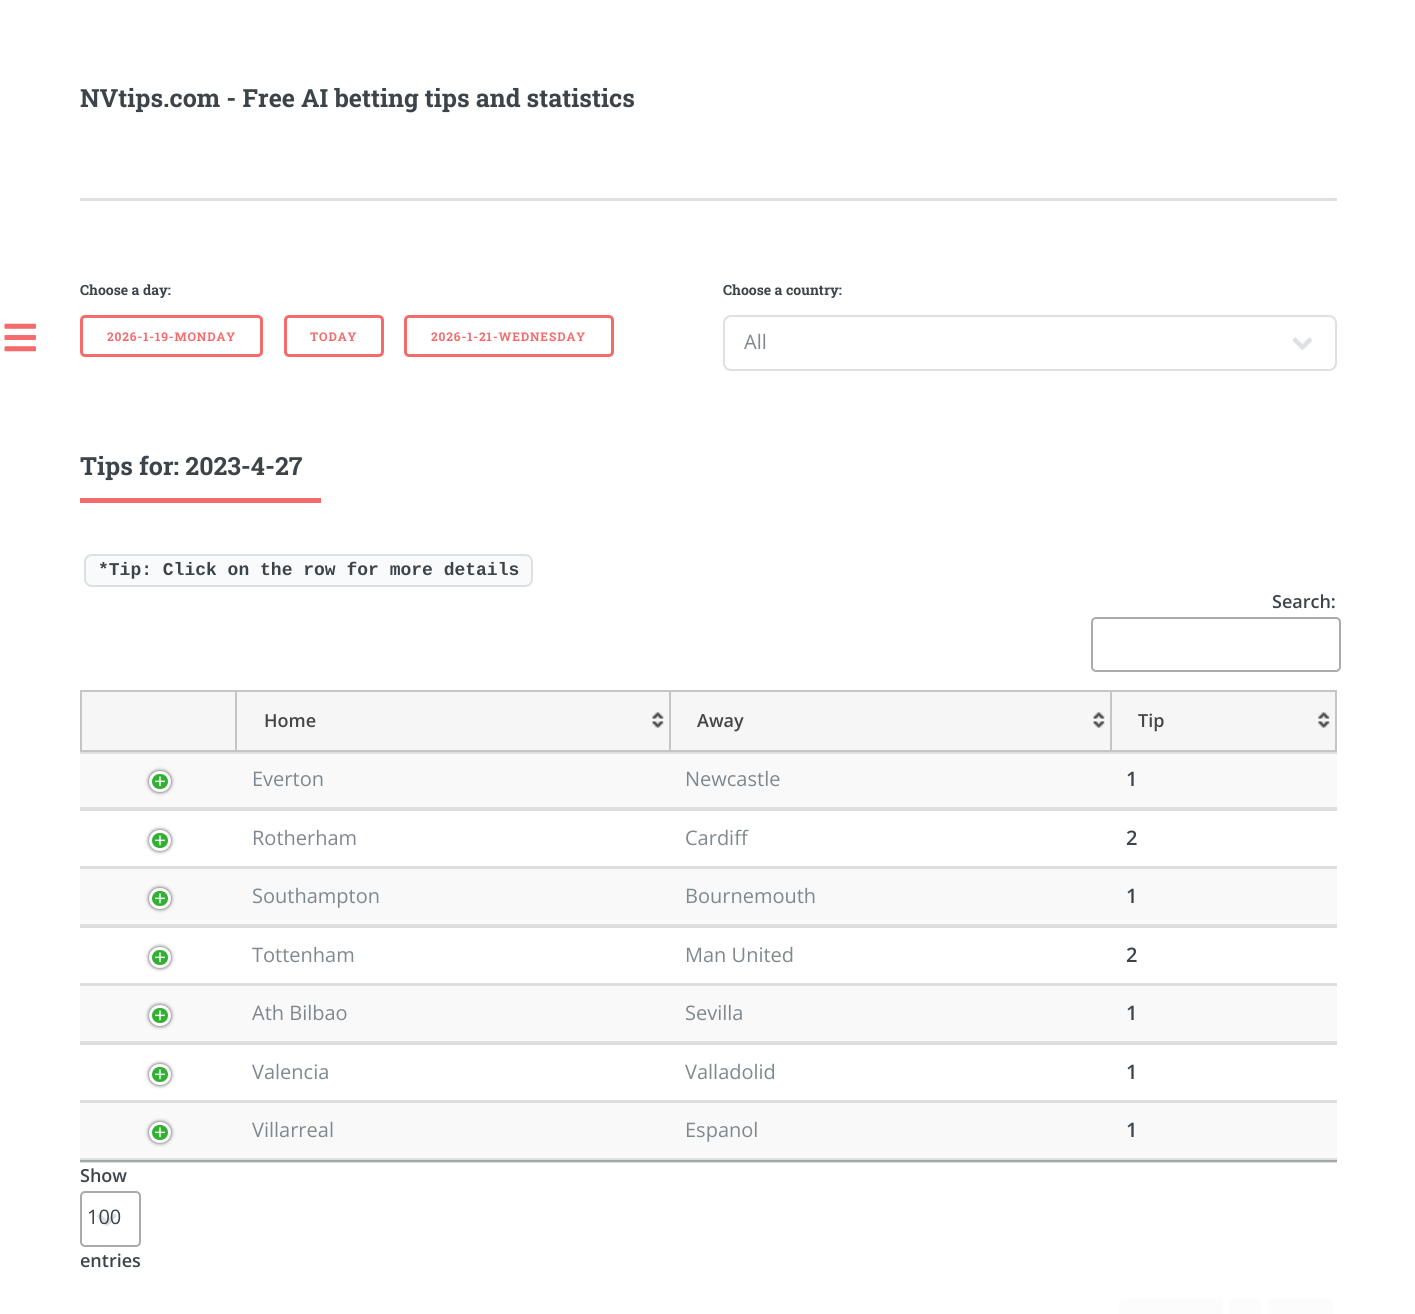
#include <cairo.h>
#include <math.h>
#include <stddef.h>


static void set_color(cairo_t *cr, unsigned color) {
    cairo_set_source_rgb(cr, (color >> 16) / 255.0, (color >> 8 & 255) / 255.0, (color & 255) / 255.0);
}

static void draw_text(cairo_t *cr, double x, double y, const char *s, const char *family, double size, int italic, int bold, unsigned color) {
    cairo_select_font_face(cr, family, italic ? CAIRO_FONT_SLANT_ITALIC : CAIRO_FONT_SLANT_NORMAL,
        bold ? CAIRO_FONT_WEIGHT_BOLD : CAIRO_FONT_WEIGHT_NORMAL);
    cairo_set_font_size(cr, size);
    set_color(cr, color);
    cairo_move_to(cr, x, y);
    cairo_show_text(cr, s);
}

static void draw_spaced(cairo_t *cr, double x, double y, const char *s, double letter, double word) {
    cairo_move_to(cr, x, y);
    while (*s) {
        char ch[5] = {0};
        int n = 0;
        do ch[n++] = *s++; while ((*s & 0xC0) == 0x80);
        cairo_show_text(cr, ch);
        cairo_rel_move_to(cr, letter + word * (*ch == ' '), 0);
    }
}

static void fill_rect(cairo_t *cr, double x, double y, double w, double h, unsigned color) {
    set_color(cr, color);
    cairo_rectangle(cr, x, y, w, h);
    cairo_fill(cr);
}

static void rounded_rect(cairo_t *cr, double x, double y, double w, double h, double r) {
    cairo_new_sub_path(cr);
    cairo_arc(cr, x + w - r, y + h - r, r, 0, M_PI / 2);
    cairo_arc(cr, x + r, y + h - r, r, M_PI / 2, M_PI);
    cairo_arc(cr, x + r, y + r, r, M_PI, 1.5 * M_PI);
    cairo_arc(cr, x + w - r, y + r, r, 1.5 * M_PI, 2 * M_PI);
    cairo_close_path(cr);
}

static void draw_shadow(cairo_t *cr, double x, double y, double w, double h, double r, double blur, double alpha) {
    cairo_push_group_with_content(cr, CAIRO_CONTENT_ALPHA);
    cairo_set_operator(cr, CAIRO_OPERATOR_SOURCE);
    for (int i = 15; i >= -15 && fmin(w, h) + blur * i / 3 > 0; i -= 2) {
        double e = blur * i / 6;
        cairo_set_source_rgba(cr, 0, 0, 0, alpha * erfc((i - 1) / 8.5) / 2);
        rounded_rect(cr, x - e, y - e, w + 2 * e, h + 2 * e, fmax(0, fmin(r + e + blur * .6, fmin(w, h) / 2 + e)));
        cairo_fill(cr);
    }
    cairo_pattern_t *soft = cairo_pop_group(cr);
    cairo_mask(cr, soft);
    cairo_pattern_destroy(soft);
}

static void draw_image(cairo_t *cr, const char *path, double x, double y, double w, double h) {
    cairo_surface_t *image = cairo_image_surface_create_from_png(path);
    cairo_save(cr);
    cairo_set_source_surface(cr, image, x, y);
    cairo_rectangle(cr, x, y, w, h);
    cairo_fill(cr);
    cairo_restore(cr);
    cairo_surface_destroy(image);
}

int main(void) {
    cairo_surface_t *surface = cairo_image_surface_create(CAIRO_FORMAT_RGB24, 1415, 1314);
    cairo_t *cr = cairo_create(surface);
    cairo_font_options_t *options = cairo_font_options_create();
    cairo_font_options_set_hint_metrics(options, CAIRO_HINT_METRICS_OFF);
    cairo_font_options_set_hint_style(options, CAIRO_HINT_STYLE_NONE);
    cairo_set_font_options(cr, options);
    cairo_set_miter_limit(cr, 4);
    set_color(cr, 0xFFFFFF);
    cairo_paint(cr);
    fill_rect(cr, 80, 1162, 1257, 1, 0xDDE1E3);
    draw_image(cr, "assets/img1.png", 4, 323, 32, 29);
    draw_text(cr, 80, 107, "NVtips.com - Free AI betting tips and statistics", "Roboto Slab", 25, 0, 1, 0x3D4449);
    fill_rect(cr, 80, 198, 1257, 3, 0xDDE1E3);
    draw_text(cr, 80, 295, "Choose a day:", "Roboto Slab", 14, 0, 1, 0x3D4449);
    rounded_rect(cr, 81.5, 316.5, 180, 39, 3.5);
    set_color(cr, 0xF56A6A);
    cairo_set_line_width(cr, 3);
    cairo_stroke(cr);
    cairo_set_font_size(cr, 12);
    draw_spaced(cr, 107, 341, "2026-1-19-MONDAY", 0.9, 0);
    rounded_rect(cr, 285.5, 316.5, 97, 39, 3.5);
    cairo_stroke(cr);
    draw_spaced(cr, 310, 341, "TODAY", 0.9, 0);
    rounded_rect(cr, 405.5, 316.5, 207, 39, 3.5);
    cairo_stroke(cr);
    draw_spaced(cr, 431, 341, "2026-1-21-WEDNESDAY", 0.9, 0);
    draw_text(cr, 723, 295, "Choose a country:", "Roboto Slab", 14, 0, 1, 0x3D4449);
    draw_image(cr, "assets/img2.png", 1292, 337, 21, 13);
    rounded_rect(cr, 724, 316, 612, 54, 7);
    set_color(cr, 0xDDE1E3);
    cairo_set_line_width(cr, 2);
    cairo_stroke(cr);
    draw_text(cr, 744, 349, "All", "Open Sans", 20, 0, 0, 0x7F888F);
    fill_rect(cr, 80, 498, 241, 5, 0xF56A6A);
    draw_text(cr, 80, 475, "Tips for: 2023-4-27", "Roboto Slab", 25, 0, 1, 0x3D4449);
    set_color(cr, 0xF9FAFB);
    rounded_rect(cr, 84, 554, 449, 33, 8);
    cairo_fill(cr);
    rounded_rect(cr, 85, 555, 447, 31, 7);
    cairo_set_source_rgba(cr, 0.824, 0.843, 0.851, 0.75);
    cairo_stroke(cr);
    draw_text(cr, 98, 575, "*Tip: Click on the row for more details", "Liberation Mono", 18, 0, 1, 0x3D4449);
    draw_text(cr, 1272, 608, "Search:", "Open Sans SemiBold", 18, 0, 0, 0x3D4449);
    rounded_rect(cr, 1092, 618, 248, 53, 4);
    set_color(cr, 0xAAAAAA);
    cairo_stroke(cr);
    fill_rect(cr, 80, 1160, 1257, 2, 0xA2A6A7);
    set_color(cr, 0xF6F6F6);
    cairo_rectangle(cr, 81, 691, 155, 60);
    cairo_fill_preserve(cr);
    set_color(cr, 0xC5C5C5);
    cairo_stroke(cr);
    fill_rect(cr, 237, 692, 432, 58, 0xF6F6F6);
    fill_rect(cr, 237, 690, 1100, 2, 0xC5C5C5);
    fill_rect(cr, 669, 690, 2, 62, 0xC5C5C5);
    fill_rect(cr, 237, 750, 434, 2, 0xC5C5C5);
    draw_text(cr, 264, 727, "Home", "Open Sans SemiBold", 18, 0, 0, 0x454545);
    draw_image(cr, "assets/img3.png", 652, 712, 12, 16);
    fill_rect(cr, 671, 692, 439, 58, 0xF6F6F6);
    fill_rect(cr, 1110, 690, 2, 62, 0xC5C5C5);
    fill_rect(cr, 671, 750, 441, 2, 0xC5C5C5);
    draw_text(cr, 697, 727, "Away", "Open Sans SemiBold", 18, 0, 0, 0x454545);
    draw_image(cr, "assets/img4.png", 1093, 712, 12, 16);
    fill_rect(cr, 1112, 692, 223, 58, 0xF6F6F6);
    fill_rect(cr, 1335, 690, 2, 62, 0xC5C5C5);
    fill_rect(cr, 1112, 750, 225, 2, 0xC5C5C5);
    draw_text(cr, 1138, 727, "Tip", "Open Sans SemiBold", 18, 0, 0, 0x454545);
    draw_image(cr, "assets/img3.png", 1318, 712, 12, 16);
    fill_rect(cr, 80, 754, 1257, 53, 0xF9F9F9);
    fill_rect(cr, 80, 752, 1257, 2, 0xDCE0E1);
    fill_rect(cr, 80, 807, 1257, 2, 0xDCE0E1);
    set_color(cr, 0x444444);
    draw_shadow(cr, 149, 771, 22, 21, 10.5, 2, 1);
    set_color(cr, 0x31B131);
    rounded_rect(cr, 150.5, 772.5, 19, 18, 9);
    cairo_fill_preserve(cr);
    set_color(cr, 0xFFFFFF);
    cairo_set_line_width(cr, 3);
    cairo_stroke(cr);
    draw_text(cr, 154, 788, "+", "Liberation Mono", 20, 0, 0, 0xFFFFFF);
    draw_text(cr, 252, 786, "Everton", "Open Sans", 20, 0, 0, 0x7F888F);
    draw_text(cr, 685, 786, "Newcastle", "Open Sans", 20, 0, 0, 0x7F888F);
    draw_text(cr, 1126, 786, "1", "Open Sans SemiBold", 20, 0, 0, 0x3D4449);
    fill_rect(cr, 80, 866, 1257, 1, 0xDDE1E3);
    set_color(cr, 0x444444);
    draw_shadow(cr, 149, 830, 22, 21, 10.5, 2, 1);
    set_color(cr, 0x31B131);
    rounded_rect(cr, 150.5, 831.5, 19, 18, 9);
    cairo_fill_preserve(cr);
    set_color(cr, 0xFFFFFF);
    cairo_stroke(cr);
    draw_text(cr, 154, 847, "+", "Liberation Mono", 20, 0, 0, 0xFFFFFF);
    fill_rect(cr, 80, 809, 1257, 2, 0xDDDDDD);
    draw_text(cr, 252, 845, "Rotherham", "Open Sans", 20, 0, 0, 0x7F888F);
    draw_text(cr, 685, 845, "Cardiff", "Open Sans", 20, 0, 0, 0x7F888F);
    draw_text(cr, 1126, 845, "2", "Open Sans SemiBold", 20, 0, 0, 0x3D4449);
    fill_rect(cr, 80, 869, 1257, 55, 0xF9F9F9);
    fill_rect(cr, 80, 924, 1257, 2, 0xDCE0E1);
    set_color(cr, 0x444444);
    draw_shadow(cr, 149, 888, 22, 21, 10.5, 2, 1);
    set_color(cr, 0x31B131);
    rounded_rect(cr, 150.5, 889.5, 19, 18, 9);
    cairo_fill_preserve(cr);
    set_color(cr, 0xFFFFFF);
    cairo_stroke(cr);
    draw_text(cr, 154, 905, "+", "Liberation Mono", 20, 0, 0, 0xFFFFFF);
    fill_rect(cr, 80, 867, 1257, 2, 0xDDDDDD);
    draw_text(cr, 252, 903, "Southampton", "Open Sans", 20, 0, 0, 0x7F888F);
    draw_text(cr, 685, 903, "Bournemouth", "Open Sans", 20, 0, 0, 0x7F888F);
    draw_text(cr, 1126, 903, "1", "Open Sans SemiBold", 20, 0, 0, 0x3D4449);
    fill_rect(cr, 80, 983, 1257, 1, 0xDDE1E3);
    set_color(cr, 0x444444);
    draw_shadow(cr, 149, 947, 22, 21, 10.5, 2, 1);
    set_color(cr, 0x31B131);
    rounded_rect(cr, 150.5, 948.5, 19, 18, 9);
    cairo_fill_preserve(cr);
    set_color(cr, 0xFFFFFF);
    cairo_stroke(cr);
    draw_text(cr, 154, 964, "+", "Liberation Mono", 20, 0, 0, 0xFFFFFF);
    fill_rect(cr, 80, 926, 1257, 2, 0xDDDDDD);
    draw_text(cr, 252, 962, "Tottenham", "Open Sans", 20, 0, 0, 0x7F888F);
    draw_text(cr, 685, 962, "Man United", "Open Sans", 20, 0, 0, 0x7F888F);
    draw_text(cr, 1126, 962, "2", "Open Sans SemiBold", 20, 0, 0, 0x3D4449);
    fill_rect(cr, 80, 986, 1257, 55, 0xF9F9F9);
    fill_rect(cr, 80, 1041, 1257, 2, 0xDCE0E1);
    set_color(cr, 0x444444);
    draw_shadow(cr, 149, 1005, 22, 21, 10.5, 2, 1);
    set_color(cr, 0x31B131);
    rounded_rect(cr, 150.5, 1006.5, 19, 18, 9);
    cairo_fill_preserve(cr);
    set_color(cr, 0xFFFFFF);
    cairo_stroke(cr);
    draw_text(cr, 154, 1022, "+", "Liberation Mono", 20, 0, 0, 0xFFFFFF);
    fill_rect(cr, 80, 984, 1257, 2, 0xDDDDDD);
    draw_text(cr, 252, 1020, "Ath Bilbao", "Open Sans", 20, 0, 0, 0x7F888F);
    draw_text(cr, 685, 1020, "Sevilla", "Open Sans", 20, 0, 0, 0x7F888F);
    draw_text(cr, 1126, 1020, "1", "Open Sans SemiBold", 20, 0, 0, 0x3D4449);
    fill_rect(cr, 80, 1100, 1257, 1, 0xDDE1E3);
    set_color(cr, 0x444444);
    draw_shadow(cr, 149, 1064, 22, 21, 10.5, 2, 1);
    set_color(cr, 0x31B131);
    rounded_rect(cr, 150.5, 1065.5, 19, 18, 9);
    cairo_fill_preserve(cr);
    set_color(cr, 0xFFFFFF);
    cairo_stroke(cr);
    draw_text(cr, 154, 1081, "+", "Liberation Mono", 20, 0, 0, 0xFFFFFF);
    fill_rect(cr, 80, 1043, 1257, 2, 0xDDDDDD);
    draw_text(cr, 252, 1079, "Valencia", "Open Sans", 20, 0, 0, 0x7F888F);
    draw_text(cr, 685, 1079, "Valladolid", "Open Sans", 20, 0, 0, 0x7F888F);
    draw_text(cr, 1126, 1079, "1", "Open Sans SemiBold", 20, 0, 0, 0x3D4449);
    fill_rect(cr, 80, 1103, 1257, 55, 0xF9F9F9);
    fill_rect(cr, 80, 1158, 1257, 2, 0xDCE0E1);
    set_color(cr, 0x444444);
    draw_shadow(cr, 149, 1122, 22, 21, 10.5, 2, 1);
    set_color(cr, 0x31B131);
    rounded_rect(cr, 150.5, 1123.5, 19, 18, 9);
    cairo_fill_preserve(cr);
    set_color(cr, 0xFFFFFF);
    cairo_stroke(cr);
    draw_text(cr, 154, 1139, "+", "Liberation Mono", 20, 0, 0, 0xFFFFFF);
    fill_rect(cr, 80, 1101, 1257, 2, 0xDDDDDD);
    draw_text(cr, 252, 1137, "Villarreal", "Open Sans", 20, 0, 0, 0x7F888F);
    draw_text(cr, 685, 1137, "Espanol", "Open Sans", 20, 0, 0, 0x7F888F);
    draw_text(cr, 1126, 1137, "1", "Open Sans SemiBold", 20, 0, 0, 0x3D4449);
    draw_text(cr, 80, 1182, "Show", "Open Sans SemiBold", 18, 0, 0, 0x3D4449);
    draw_image(cr, "assets/img5.png", 97, 1213, 20, 13);
    rounded_rect(cr, 81, 1192, 59, 54, 4);
    set_color(cr, 0xAAAAAA);
    cairo_set_line_width(cr, 2);
    cairo_stroke(cr);
    draw_text(cr, 87, 1224, "100", "Open Sans", 20, 0, 0, 0x3D4449);
    draw_text(cr, 80, 1267, "entries", "Open Sans SemiBold", 18, 0, 0, 0x3D4449);
    set_color(cr, 0xFCFCFC);
    cairo_new_path(cr);
    cairo_move_to(cr, 1124, 1299);
    cairo_line_to(cr, 1223, 1299);
    cairo_line_to(cr, 1223, 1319);
    cairo_line_to(cr, 1124, 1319);
    cairo_curve_to(cr, 1121, 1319, 1119, 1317, 1119, 1314);
    cairo_line_to(cr, 1119, 1304);
    cairo_curve_to(cr, 1119, 1301, 1121, 1299, 1124, 1299);
    cairo_close_path(cr);
    cairo_fill(cr);
    rounded_rect(cr, 1229, 1299, 33, 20, 5);
    cairo_fill(cr);
    cairo_new_path(cr);
    cairo_move_to(cr, 1268, 1299);
    cairo_line_to(cr, 1329, 1299);
    cairo_curve_to(cr, 1332, 1299, 1334, 1301, 1334, 1304);
    cairo_line_to(cr, 1334, 1314);
    cairo_curve_to(cr, 1334, 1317, 1332, 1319, 1329, 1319);
    cairo_line_to(cr, 1268, 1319);
    cairo_close_path(cr);
    cairo_fill(cr);
    cairo_surface_write_to_png(surface, "output.png");
    cairo_font_options_destroy(options);
    cairo_destroy(cr);
    cairo_surface_destroy(surface);
    return 0;
}
